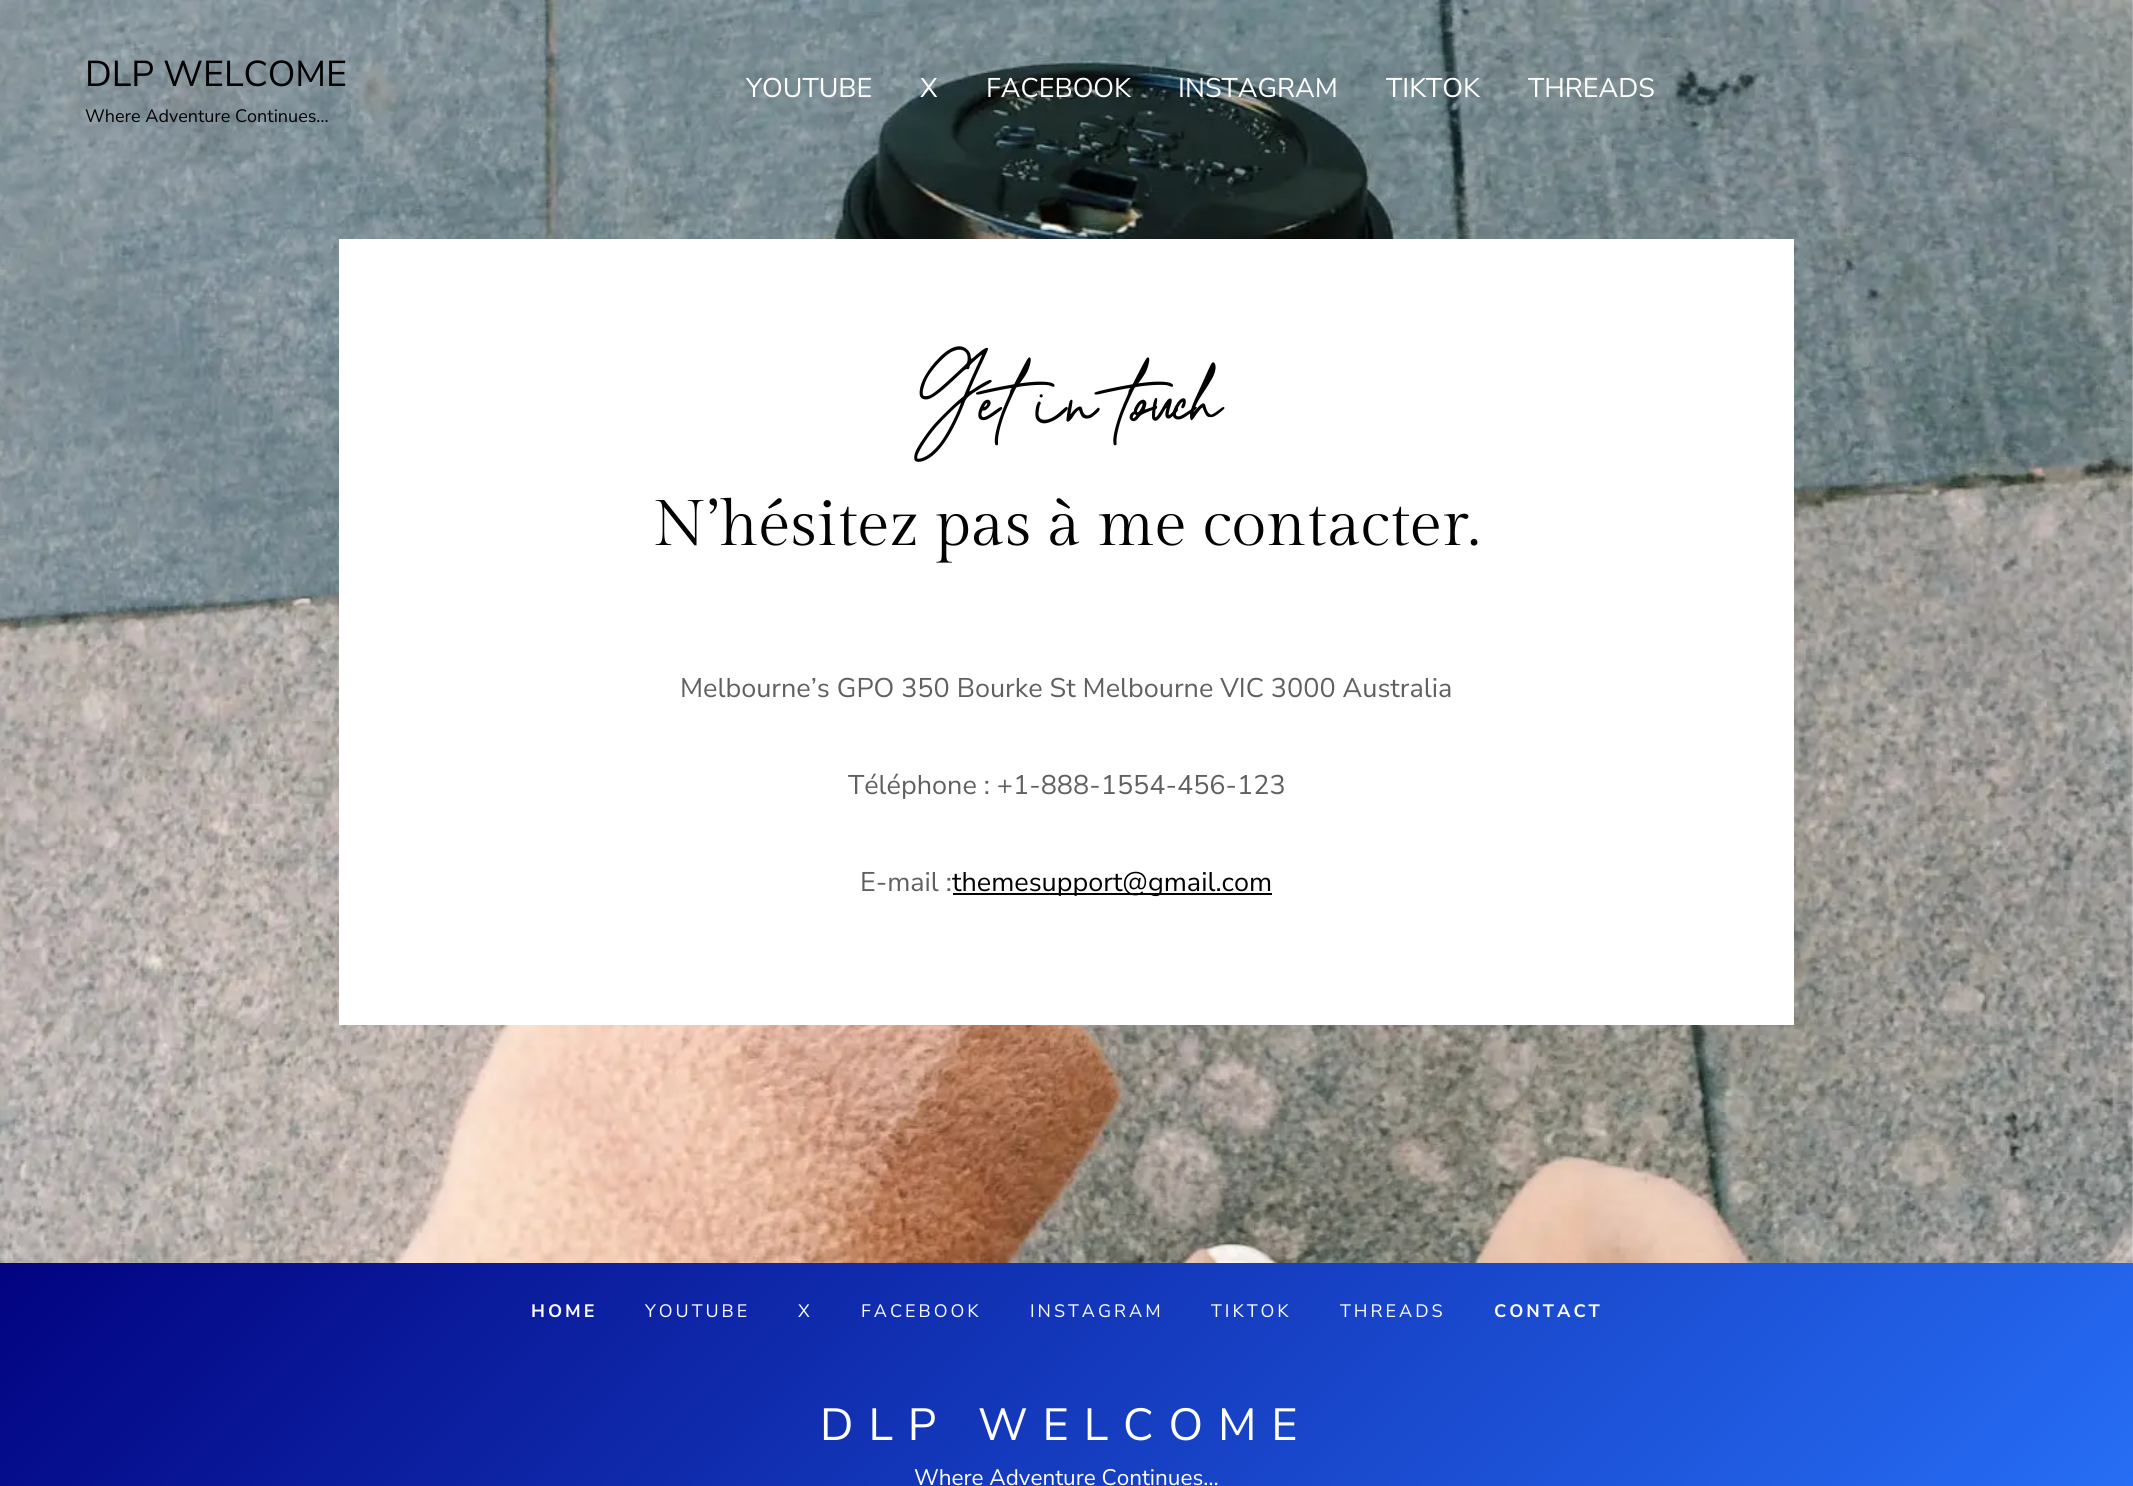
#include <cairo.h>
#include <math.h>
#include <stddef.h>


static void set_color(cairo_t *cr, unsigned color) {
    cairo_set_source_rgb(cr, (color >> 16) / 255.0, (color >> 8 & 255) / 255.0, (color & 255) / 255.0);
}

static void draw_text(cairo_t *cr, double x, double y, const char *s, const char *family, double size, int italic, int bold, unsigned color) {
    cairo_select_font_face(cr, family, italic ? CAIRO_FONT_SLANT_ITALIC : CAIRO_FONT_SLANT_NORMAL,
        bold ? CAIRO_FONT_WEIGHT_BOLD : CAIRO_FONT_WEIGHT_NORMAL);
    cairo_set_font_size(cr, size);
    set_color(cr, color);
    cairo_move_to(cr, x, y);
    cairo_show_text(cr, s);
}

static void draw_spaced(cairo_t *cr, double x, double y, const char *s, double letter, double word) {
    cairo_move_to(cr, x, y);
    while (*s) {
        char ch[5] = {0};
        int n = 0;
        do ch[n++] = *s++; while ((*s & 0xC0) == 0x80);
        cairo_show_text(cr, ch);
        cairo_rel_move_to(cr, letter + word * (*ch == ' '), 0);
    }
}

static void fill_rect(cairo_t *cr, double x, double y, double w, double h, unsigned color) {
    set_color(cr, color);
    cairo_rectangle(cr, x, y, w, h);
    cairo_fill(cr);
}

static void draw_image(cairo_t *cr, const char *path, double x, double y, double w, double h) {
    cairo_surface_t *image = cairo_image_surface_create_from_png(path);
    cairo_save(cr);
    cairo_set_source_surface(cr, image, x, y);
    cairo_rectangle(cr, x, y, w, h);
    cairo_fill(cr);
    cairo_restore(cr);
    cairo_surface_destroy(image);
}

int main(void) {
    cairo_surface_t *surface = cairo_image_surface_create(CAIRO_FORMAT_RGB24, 2133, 1486);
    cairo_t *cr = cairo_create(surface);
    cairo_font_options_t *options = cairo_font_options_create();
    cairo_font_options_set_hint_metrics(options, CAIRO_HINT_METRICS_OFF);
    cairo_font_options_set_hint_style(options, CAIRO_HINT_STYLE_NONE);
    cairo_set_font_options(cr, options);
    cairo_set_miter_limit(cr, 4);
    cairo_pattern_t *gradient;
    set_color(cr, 0xFFFFFF);
    cairo_paint(cr);
    draw_image(cr, "assets/img1.png", 0, 0, 2133, 1263);
    draw_text(cr, 85, 86, "DLP WELCOME", "Nunito Sans", 36, 0, 0, 0x020202);
    draw_text(cr, 85, 122, "Where Adventure Continues…", "Nunito Sans", 18, 0, 0, 0x020202);
    draw_text(cr, 746, 97, "YOUTUBE", "Nunito Sans", 27, 0, 0, 0xFEFEFE);
    draw_text(cr, 920, 97, "X", "Nunito Sans", 27, 0, 0, 0xFEFEFE);
    draw_text(cr, 986, 97, "FACEBOOK", "Nunito Sans", 27, 0, 0, 0xFEFEFE);
    draw_text(cr, 1178, 97, "INSTAGRAM", "Nunito Sans", 27, 0, 0, 0xFEFEFE);
    draw_text(cr, 1386, 97, "TIKTOK", "Nunito Sans", 27, 0, 0, 0xFEFEFE);
    draw_text(cr, 1528, 97, "THREADS", "Nunito Sans", 27, 0, 0, 0xFEFEFE);
    fill_rect(cr, 339, 239, 1455, 786, 0xFFFFFF);
    draw_text(cr, 914, 433, "Get in touch", "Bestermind", 80.5, 0, 0, 0x020202);
    draw_text(cr, 653, 545, "N’hésitez pas à me contacter.", "Gilda Display", 64.25, 0, 0, 0x020202);
    draw_text(cr, 680, 697, "Melbourne’s GPO 350 Bourke St Melbourne VIC 3000 Australia", "Nunito Sans", 27, 0, 0, 0x606060);
    draw_text(cr, 848, 794, "Téléphone : +1-888-1554-456-123", "Nunito Sans", 27, 0, 0, 0x606060);
    draw_text(cr, 860, 891, "E-mail :", "Nunito Sans", 27, 0, 0, 0x606060);
    fill_rect(cr, 953, 893, 319, 2, 0x020202);
    draw_text(cr, 952, 891, "themesupport@gmail.com", "Nunito Sans", 27, 0, 0, 0x020202);
    gradient = cairo_pattern_create_linear(444, 819, 1689, 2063);
    cairo_pattern_add_color_stop_rgba(gradient, 0, 0.008, 0.012, 0.506, 1);
    cairo_pattern_add_color_stop_rgba(gradient, 1, 0.157, 0.455, 0.988, 1);
    cairo_set_source(cr, gradient);
    cairo_pattern_destroy(gradient);
    cairo_rectangle(cr, 0, 1263, 2133, 223);
    cairo_fill(cr);
    cairo_select_font_face(cr, "Nunito Sans", CAIRO_FONT_SLANT_NORMAL, CAIRO_FONT_WEIGHT_BOLD);
    cairo_set_font_size(cr, 18);
    set_color(cr, 0xFEFEFE);
    draw_spaced(cr, 531, 1317, "HOME", 3, 0);
    cairo_select_font_face(cr, "Nunito Sans", CAIRO_FONT_SLANT_NORMAL, CAIRO_FONT_WEIGHT_NORMAL);
    draw_spaced(cr, 645, 1317, "YOUTUBE", 3, 0);
    draw_spaced(cr, 798, 1317, "X", 3, 0);
    draw_spaced(cr, 861, 1317, "FACEBOOK", 3, 0);
    draw_spaced(cr, 1030, 1317, "INSTAGRAM", 3, 0);
    draw_spaced(cr, 1211, 1317, "TIKTOK", 3, 0);
    draw_spaced(cr, 1340, 1317, "THREADS", 3, 0);
    cairo_select_font_face(cr, "Nunito Sans", CAIRO_FONT_SLANT_NORMAL, CAIRO_FONT_WEIGHT_BOLD);
    draw_spaced(cr, 1494, 1317, "CONTACT", 3, 0);
    cairo_select_font_face(cr, "Nunito Sans", CAIRO_FONT_SLANT_NORMAL, CAIRO_FONT_WEIGHT_NORMAL);
    cairo_set_font_size(cr, 45);
    draw_spaced(cr, 820, 1440, "DLP WELCOME", 15, 0);
    draw_text(cr, 914, 1485, "Where Adventure Continues…", "Nunito Sans", 22.5, 0, 0, 0xFEFEFE);
    cairo_surface_write_to_png(surface, "output.png");
    cairo_font_options_destroy(options);
    cairo_destroy(cr);
    cairo_surface_destroy(surface);
    return 0;
}
